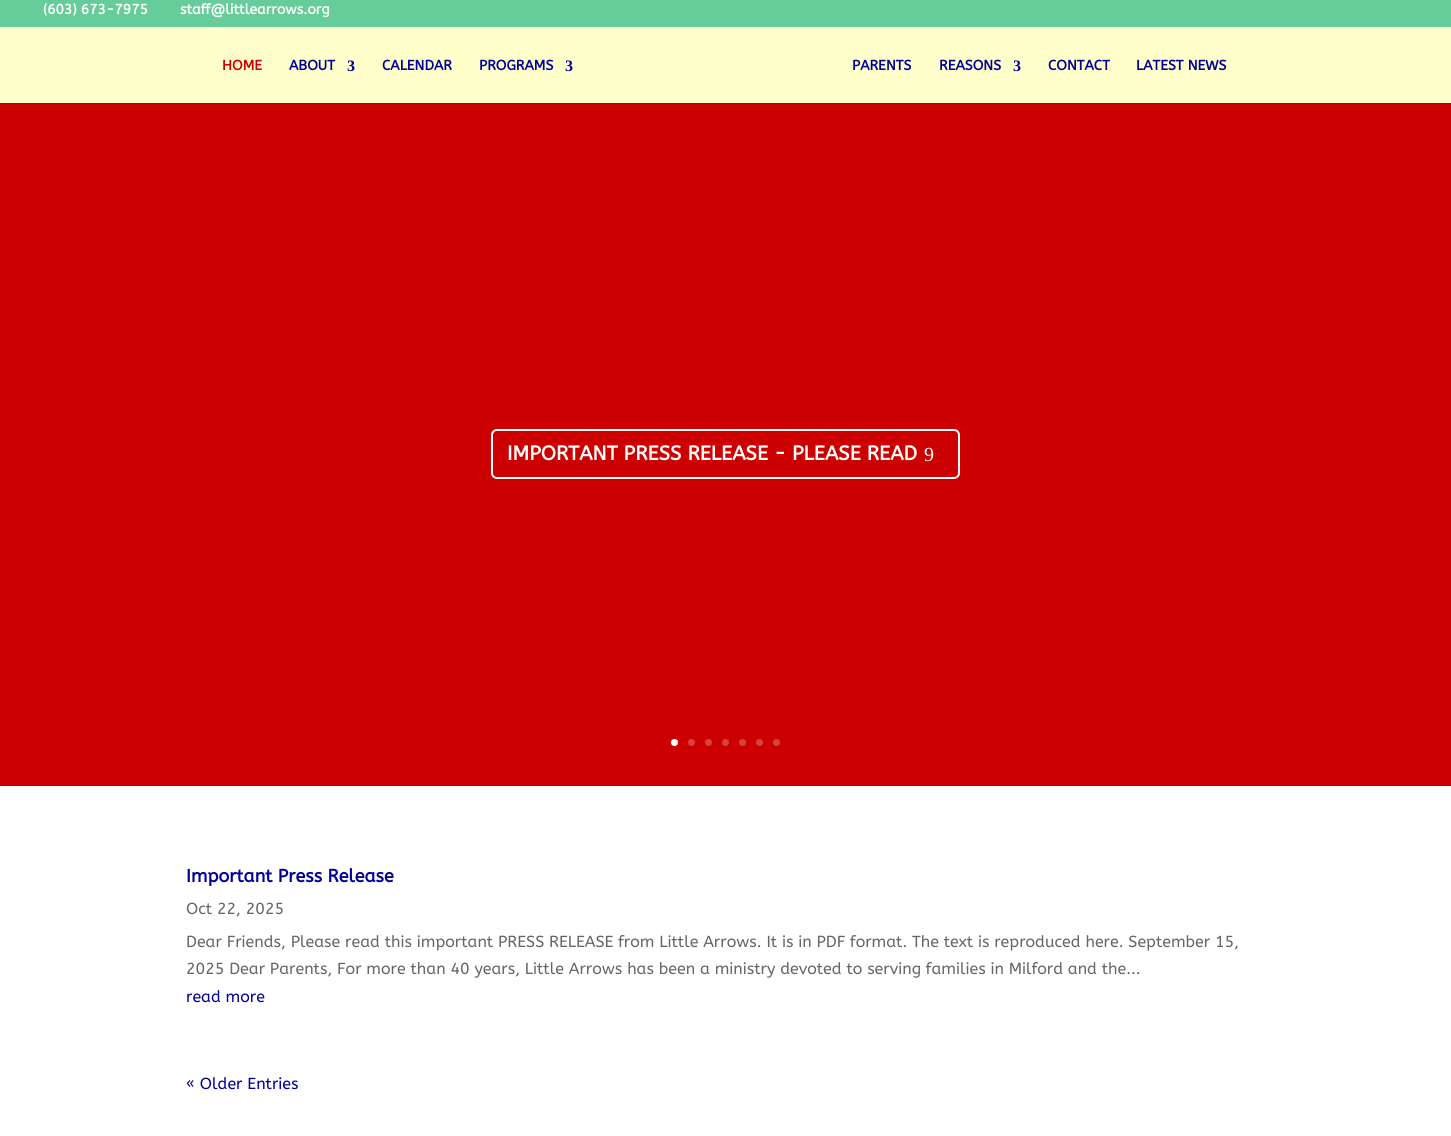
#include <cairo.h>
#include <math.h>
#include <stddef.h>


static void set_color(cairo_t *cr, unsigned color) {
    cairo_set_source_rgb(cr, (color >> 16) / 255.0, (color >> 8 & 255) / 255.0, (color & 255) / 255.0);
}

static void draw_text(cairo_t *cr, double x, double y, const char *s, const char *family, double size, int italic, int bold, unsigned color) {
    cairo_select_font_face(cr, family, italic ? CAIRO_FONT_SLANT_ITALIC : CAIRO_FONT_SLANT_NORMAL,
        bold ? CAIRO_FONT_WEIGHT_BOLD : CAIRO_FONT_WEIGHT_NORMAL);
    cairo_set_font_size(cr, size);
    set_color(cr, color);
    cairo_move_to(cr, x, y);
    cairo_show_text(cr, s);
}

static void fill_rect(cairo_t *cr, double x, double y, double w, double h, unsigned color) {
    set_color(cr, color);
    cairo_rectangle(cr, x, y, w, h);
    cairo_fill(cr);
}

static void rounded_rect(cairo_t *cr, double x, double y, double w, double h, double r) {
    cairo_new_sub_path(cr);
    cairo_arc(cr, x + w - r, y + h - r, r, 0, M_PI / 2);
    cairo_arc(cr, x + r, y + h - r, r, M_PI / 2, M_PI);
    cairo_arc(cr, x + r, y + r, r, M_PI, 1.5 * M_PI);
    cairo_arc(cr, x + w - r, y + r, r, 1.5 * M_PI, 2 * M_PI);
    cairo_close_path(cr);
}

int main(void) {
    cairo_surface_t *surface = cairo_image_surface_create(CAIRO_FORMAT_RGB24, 1451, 1136);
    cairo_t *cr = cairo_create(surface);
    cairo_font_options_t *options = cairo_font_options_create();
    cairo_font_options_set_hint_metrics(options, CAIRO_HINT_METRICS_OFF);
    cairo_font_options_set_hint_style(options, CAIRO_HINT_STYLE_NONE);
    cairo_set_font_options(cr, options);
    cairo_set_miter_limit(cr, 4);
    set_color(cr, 0xFFFFFF);
    cairo_paint(cr);
    fill_rect(cr, 0, 0, 1451, 27, 0x66CC99);
    draw_text(cr, 43, 14, "(603) 673-7975", "ABeeZee", 14, 0, 1, 0xFFFFFF);
    draw_text(cr, 180, 14, "staff@littlearrows.org", "ABeeZee", 14, 0, 1, 0xFFFFFF);
    fill_rect(cr, 0, 103, 1451, 1, 0xB80000);
    fill_rect(cr, 0, 27, 1451, 76, 0xFFFFCC);
    draw_text(cr, 222, 70, "HOME", "ABeeZee", 14, 0, 1, 0xCC0000);
    draw_text(cr, 289, 70, "ABOUT", "ABeeZee", 14, 0, 1, 0x000099);
    draw_text(cr, 347, 71, "3", "Liberation Serif", 16, 0, 1, 0x000099);
    draw_text(cr, 382, 70, "CALENDAR", "ABeeZee", 14, 0, 1, 0x000099);
    draw_text(cr, 479, 70, "PROGRAMS", "ABeeZee", 14, 0, 1, 0x000099);
    draw_text(cr, 565, 71, "3", "Liberation Serif", 16, 0, 1, 0x000099);
    draw_text(cr, 852, 70, "PARENTS", "ABeeZee", 14, 0, 1, 0x000099);
    draw_text(cr, 939, 70, "REASONS", "ABeeZee", 14, 0, 1, 0x000099);
    draw_text(cr, 1013, 71, "3", "Liberation Serif", 16, 0, 1, 0x000099);
    draw_text(cr, 1048, 70, "CONTACT", "ABeeZee", 14, 0, 1, 0x000099);
    draw_text(cr, 1136, 70, "LATEST NEWS", "ABeeZee", 14, 0, 1, 0x000099);
    fill_rect(cr, 0, 104, 1451, 682, 0xCC0000);
    rounded_rect(cr, 492, 430, 467, 48, 5);
    set_color(cr, 0xFFFFFF);
    cairo_stroke(cr);
    draw_text(cr, 507, 460, "IMPORTANT PRESS RELEASE - PLEASE READ", "ABeeZee", 20, 0, 1, 0xFFFFFF);
    draw_text(cr, 924, 461, "9", "Liberation Serif", 20, 0, 0, 0xFFFFFF);
    cairo_new_path(cr);
    cairo_arc(cr, 674.5, 742.5, 3.5, 0, 2 * M_PI);
    cairo_fill(cr);
    set_color(cr, 0xD94040);
    cairo_arc(cr, 691.5, 742.5, 3.5, 0, 2 * M_PI);
    cairo_fill(cr);
    cairo_arc(cr, 708.5, 742.5, 3.5, 0, 2 * M_PI);
    cairo_fill(cr);
    cairo_arc(cr, 725.5, 742.5, 3.5, 0, 2 * M_PI);
    cairo_fill(cr);
    cairo_arc(cr, 742.5, 742.5, 3.5, 0, 2 * M_PI);
    cairo_fill(cr);
    cairo_arc(cr, 759.5, 742.5, 3.5, 0, 2 * M_PI);
    cairo_fill(cr);
    cairo_arc(cr, 776.5, 742.5, 3.5, 0, 2 * M_PI);
    cairo_fill(cr);
    draw_text(cr, 186, 882, "Important Press Release", "ABeeZee", 18, 0, 1, 0x000099);
    draw_text(cr, 186, 914, "Oct 22, 2025", "ABeeZee", 16, 0, 0, 0x666666);
    draw_text(cr, 186, 947, "Dear Friends, Please read this important PRESS RELEASE from Little Arrows. It is in PDF format. The text is reproduced here. September 15,", "ABeeZee", 16, 0, 0, 0x666666);
    draw_text(cr, 186, 974, "2025 Dear Parents, For more than 40 years, Little Arrows has been a ministry devoted to serving families in Milford and the...", "ABeeZee", 16, 0, 0, 0x666666);
    draw_text(cr, 186, 1002, "read more", "ABeeZee", 16, 0, 0, 0x000099);
    draw_text(cr, 186, 1089, "« Older Entries", "ABeeZee", 16, 0, 0, 0x000099);
    cairo_surface_write_to_png(surface, "output.png");
    cairo_font_options_destroy(options);
    cairo_destroy(cr);
    cairo_surface_destroy(surface);
    return 0;
}
